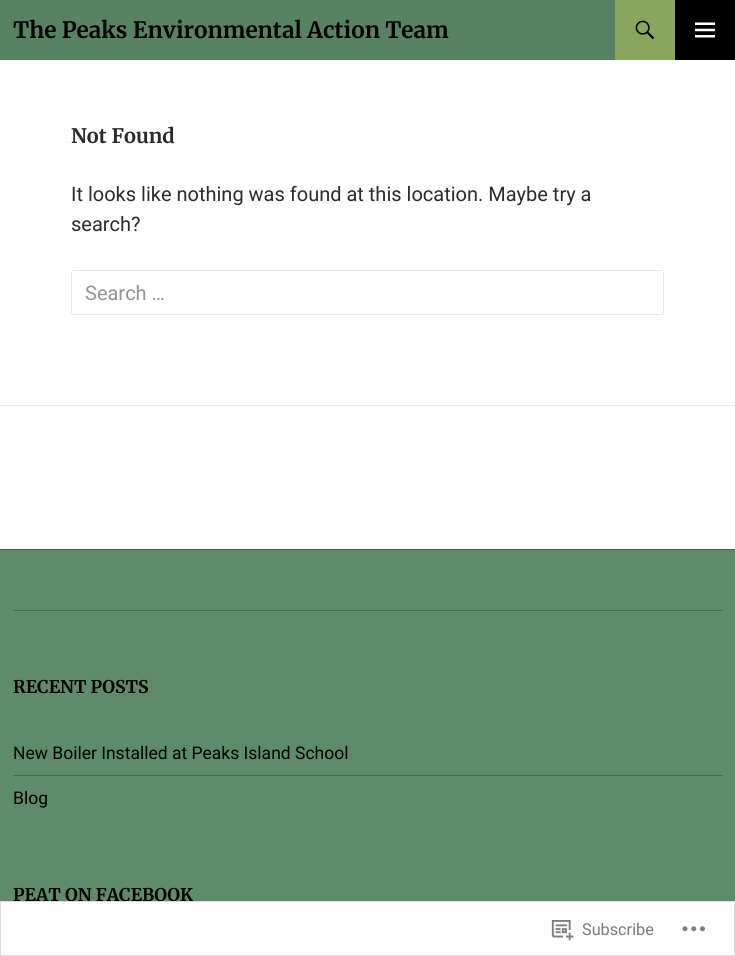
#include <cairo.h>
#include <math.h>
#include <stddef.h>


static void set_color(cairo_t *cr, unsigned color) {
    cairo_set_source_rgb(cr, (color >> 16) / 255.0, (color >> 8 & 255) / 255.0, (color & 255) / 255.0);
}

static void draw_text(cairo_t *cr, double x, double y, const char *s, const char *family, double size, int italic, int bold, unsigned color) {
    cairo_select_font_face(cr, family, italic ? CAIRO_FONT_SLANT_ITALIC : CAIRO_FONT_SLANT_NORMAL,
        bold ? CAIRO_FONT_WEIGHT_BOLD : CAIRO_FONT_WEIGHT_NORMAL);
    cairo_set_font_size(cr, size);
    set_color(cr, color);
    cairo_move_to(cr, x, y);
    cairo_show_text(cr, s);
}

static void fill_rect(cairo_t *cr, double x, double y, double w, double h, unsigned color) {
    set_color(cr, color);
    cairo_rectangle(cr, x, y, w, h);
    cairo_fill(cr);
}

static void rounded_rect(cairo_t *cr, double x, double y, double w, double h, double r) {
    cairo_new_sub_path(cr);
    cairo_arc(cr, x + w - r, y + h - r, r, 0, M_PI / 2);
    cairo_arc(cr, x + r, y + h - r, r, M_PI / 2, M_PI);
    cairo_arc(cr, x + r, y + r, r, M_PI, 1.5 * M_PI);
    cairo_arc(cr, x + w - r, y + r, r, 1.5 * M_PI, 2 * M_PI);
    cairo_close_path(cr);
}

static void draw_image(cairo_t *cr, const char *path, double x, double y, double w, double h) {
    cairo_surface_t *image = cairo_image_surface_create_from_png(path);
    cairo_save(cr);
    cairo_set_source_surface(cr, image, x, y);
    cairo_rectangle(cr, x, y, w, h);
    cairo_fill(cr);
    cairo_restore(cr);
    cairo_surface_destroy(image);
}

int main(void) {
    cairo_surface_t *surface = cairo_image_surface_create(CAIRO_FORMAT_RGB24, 735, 956);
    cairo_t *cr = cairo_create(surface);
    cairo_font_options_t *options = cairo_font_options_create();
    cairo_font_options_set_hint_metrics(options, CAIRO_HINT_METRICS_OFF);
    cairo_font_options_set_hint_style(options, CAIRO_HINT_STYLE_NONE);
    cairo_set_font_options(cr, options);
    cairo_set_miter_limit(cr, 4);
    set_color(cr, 0xFFFFFF);
    cairo_paint(cr);
    fill_rect(cr, 0, 0, 615, 60, 0x578363);
    draw_text(cr, 13, 38, "The Peaks Environmental Action Team", "Merriweather Light", 22.5, 0, 0, 0x000000);
    fill_rect(cr, 615, 0, 60, 60, 0x88A65E);
    draw_image(cr, "assets/img1.png", 635, 20, 20, 20);
    fill_rect(cr, 675, 0, 60, 60, 0x000000);
    draw_image(cr, "assets/img2.png", 695, 22, 20, 16);
    draw_text(cr, 71, 143, "Not Found", "Merriweather Light", 20, 0, 0, 0x2B2B2B);
    draw_text(cr, 71, 201, "It looks like nothing was found at this location. Maybe try a", "Roboto", 20, 0, 0, 0x2B2B2B);
    draw_text(cr, 71, 231, "search?", "Roboto", 20, 0, 0, 0x2B2B2B);
    rounded_rect(cr, 71.5, 270.5, 592, 44, 2);
    set_color(cr, 0xE6E6E6);
    cairo_set_line_width(cr, 1);
    cairo_stroke(cr);
    draw_text(cr, 85, 300, "Search …", "Roboto", 20, 0, 0, 0x939393);
    fill_rect(cr, 0, 405, 735, 1, 0xE6E6E6);
    fill_rect(cr, 0, 550, 735, 405, 0x5E8C6A);
    fill_rect(cr, 0, 549, 735, 1, 0x476B50);
    fill_rect(cr, 13, 610, 710, 1, 0x476B50);
    draw_text(cr, 13, 693, "RECENT POSTS", "Merriweather Light", 17.5, 0, 0, 0x000000);
    draw_text(cr, 13, 759, "New Boiler Installed at Peaks Island School", "Roboto", 17.5, 0, 0, 0x000000);
    fill_rect(cr, 13, 775, 710, 1, 0x476B50);
    draw_text(cr, 13, 804, "Blog", "Roboto", 17.5, 0, 0, 0x000000);
    draw_text(cr, 13, 901, "PEAT ON FACEBOOK", "Merriweather Light", 17.5, 0, 0, 0x000000);
    cairo_set_source_rgba(cr, 1, 1, 1, 0.98);
    cairo_rectangle(cr, 0.5, 901.5, 734, 54);
    cairo_fill_preserve(cr);
    set_color(cr, 0xDDDDDF);
    cairo_stroke(cr);
    draw_image(cr, "assets/img3.png", 551, 920, 23, 21);
    draw_text(cr, 582, 935, "Subscribe", "Roboto", 16.25, 0, 0, 0x777C82);
    draw_image(cr, "assets/img4.png", 682, 926, 23, 6);
    cairo_surface_write_to_png(surface, "output.png");
    cairo_font_options_destroy(options);
    cairo_destroy(cr);
    cairo_surface_destroy(surface);
    return 0;
}
